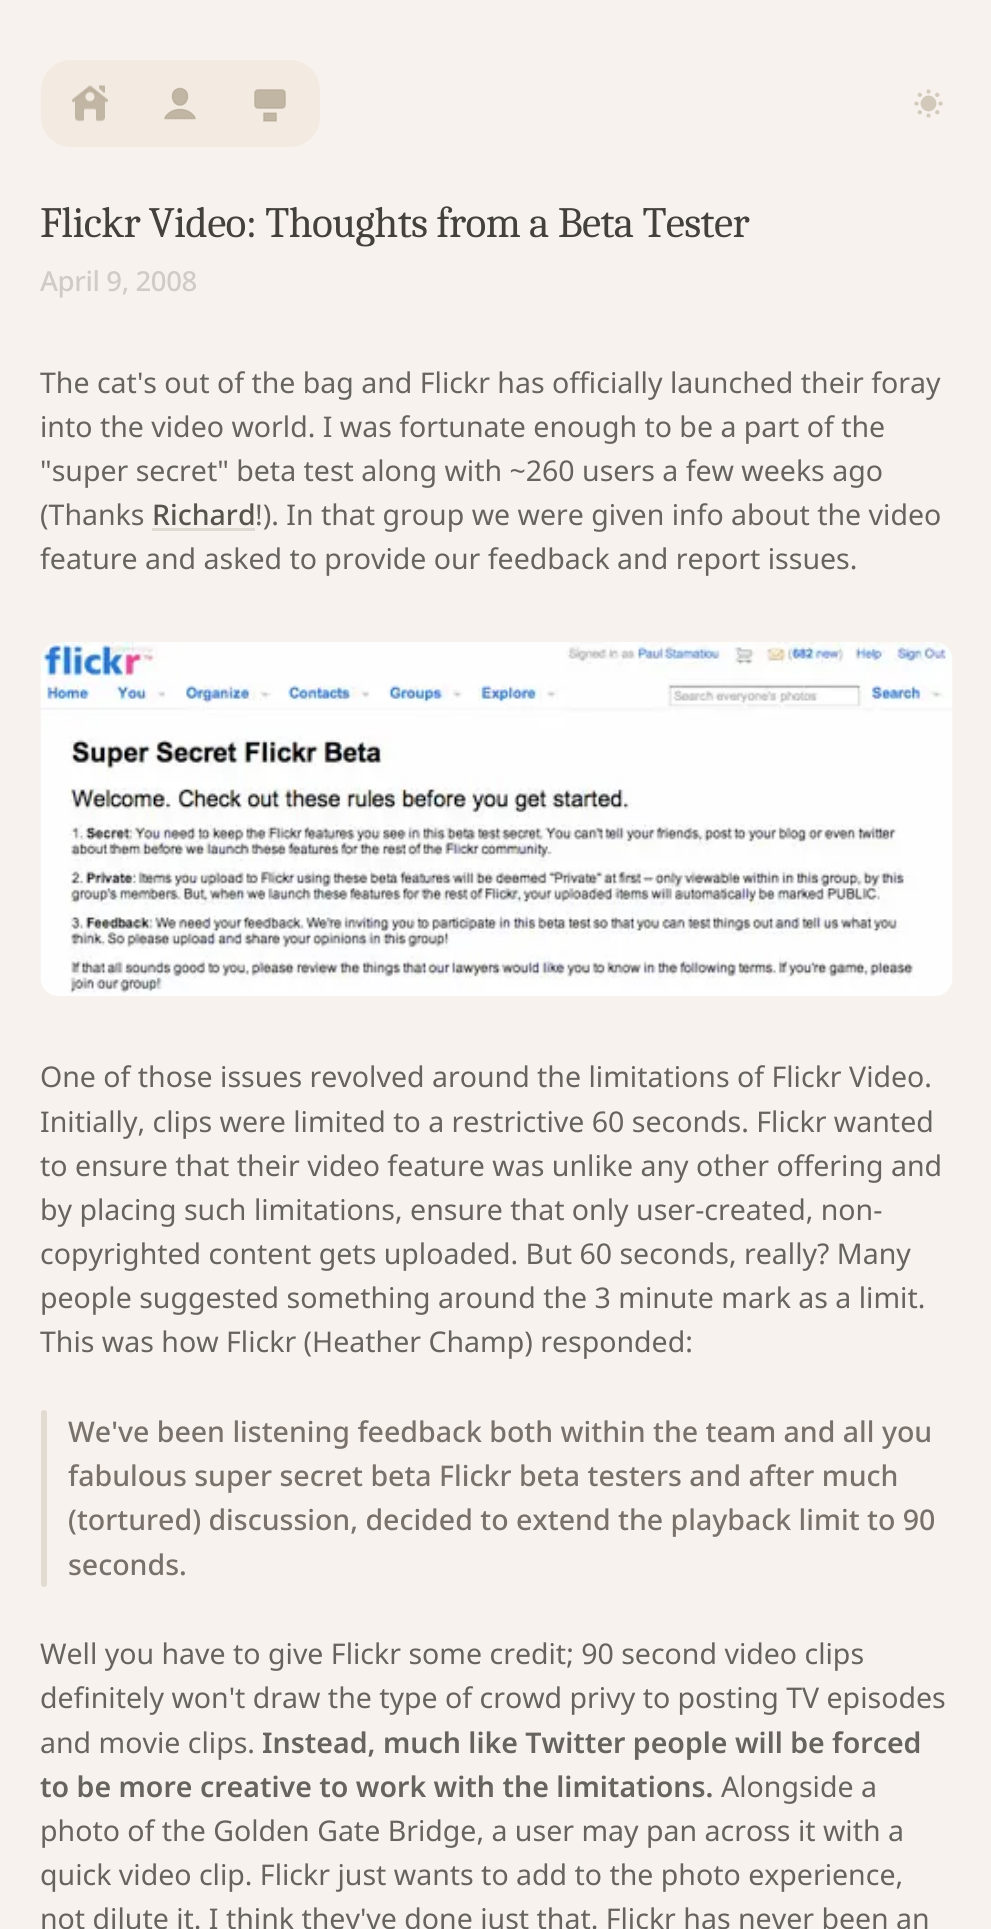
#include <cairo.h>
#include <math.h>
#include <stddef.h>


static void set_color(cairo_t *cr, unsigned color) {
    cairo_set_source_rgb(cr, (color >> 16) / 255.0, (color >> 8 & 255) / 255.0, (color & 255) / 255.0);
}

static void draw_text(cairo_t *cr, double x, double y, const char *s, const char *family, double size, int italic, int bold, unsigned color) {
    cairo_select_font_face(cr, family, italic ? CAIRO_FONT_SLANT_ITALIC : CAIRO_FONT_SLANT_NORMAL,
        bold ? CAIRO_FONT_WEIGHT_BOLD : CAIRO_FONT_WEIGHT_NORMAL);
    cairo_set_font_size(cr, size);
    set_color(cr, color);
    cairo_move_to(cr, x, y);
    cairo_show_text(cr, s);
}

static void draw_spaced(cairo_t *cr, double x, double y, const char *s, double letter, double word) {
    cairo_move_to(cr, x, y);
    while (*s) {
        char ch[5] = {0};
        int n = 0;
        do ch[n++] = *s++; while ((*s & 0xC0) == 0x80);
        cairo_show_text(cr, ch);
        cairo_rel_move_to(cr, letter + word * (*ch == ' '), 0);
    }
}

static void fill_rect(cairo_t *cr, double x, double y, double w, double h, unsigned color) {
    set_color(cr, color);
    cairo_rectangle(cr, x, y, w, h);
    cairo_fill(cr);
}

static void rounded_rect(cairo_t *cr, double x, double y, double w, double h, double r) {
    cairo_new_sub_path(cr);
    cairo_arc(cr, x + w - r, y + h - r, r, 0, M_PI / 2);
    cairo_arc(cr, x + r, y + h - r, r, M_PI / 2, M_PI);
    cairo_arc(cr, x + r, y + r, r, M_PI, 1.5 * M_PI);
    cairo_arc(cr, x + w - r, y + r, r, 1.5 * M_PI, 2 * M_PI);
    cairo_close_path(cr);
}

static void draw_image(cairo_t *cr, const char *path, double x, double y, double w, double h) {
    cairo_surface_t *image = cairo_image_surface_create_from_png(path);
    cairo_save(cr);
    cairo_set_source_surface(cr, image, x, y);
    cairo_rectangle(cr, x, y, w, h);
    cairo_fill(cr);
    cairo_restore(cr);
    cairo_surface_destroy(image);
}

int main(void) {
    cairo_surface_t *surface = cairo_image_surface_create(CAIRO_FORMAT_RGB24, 991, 1929);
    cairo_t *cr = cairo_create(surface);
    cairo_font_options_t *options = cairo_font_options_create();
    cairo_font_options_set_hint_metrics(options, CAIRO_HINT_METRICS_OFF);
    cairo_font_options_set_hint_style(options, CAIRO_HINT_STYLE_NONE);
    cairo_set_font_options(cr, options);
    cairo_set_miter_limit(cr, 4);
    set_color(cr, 0xF7F2ED);
    cairo_paint(cr);
    set_color(cr, 0xF3EBE2);
    rounded_rect(cr, 41, 60, 279, 87, 30);
    cairo_fill(cr);
    draw_image(cr, "assets/img1.png", 72, 85, 36, 37);
    draw_image(cr, "assets/img2.png", 164, 87, 32, 33);
    draw_image(cr, "assets/img3.png", 254, 89, 32, 33);
    draw_image(cr, "assets/img4.png", 914, 89, 29, 29);
    cairo_select_font_face(cr, "Caladea", CAIRO_FONT_SLANT_NORMAL, CAIRO_FONT_WEIGHT_NORMAL);
    cairo_set_font_size(cr, 43.25);
    set_color(cr, 0x44403B);
    draw_spaced(cr, 40, 237, "Flickr Video: Thoughts from a Beta Tester", -0.65, 0);
    cairo_select_font_face(cr, "Noto Sans Medium", CAIRO_FONT_SLANT_NORMAL, CAIRO_FONT_WEIGHT_NORMAL);
    cairo_set_font_size(cr, 27.5);
    set_color(cr, 0xD0CBC6);
    draw_spaced(cr, 40, 291, "April 9, 2008", -0.4, 0);
    draw_text(cr, 40, 393, "The cat's out of the bag and Flickr has officially launched their foray", "Noto Sans", 28.5, 0, 0, 0x67635E);
    draw_text(cr, 40, 437, "into the video world. I was fortunate enough to be a part of the", "Noto Sans", 28.5, 0, 0, 0x67635E);
    draw_text(cr, 40, 481, "\"super secret\" beta test along with ~260 users a few weeks ago", "Noto Sans", 28.5, 0, 0, 0x67635E);
    draw_text(cr, 40, 525, "(Thanks", "Noto Sans", 28.5, 0, 0, 0x67635E);
    draw_text(cr, 152, 525, "Richard", "Noto Sans Medium", 28.5, 0, 0, 0x57534D);
    fill_rect(cr, 152, 528, 103, 3, 0xDFD9D4);
    draw_text(cr, 255, 525, "!). In that group we were given info about the video", "Noto Sans", 28.5, 0, 0, 0x67635E);
    draw_text(cr, 40, 569, "feature and asked to provide our feedback and report issues.", "Noto Sans", 28.5, 0, 0, 0x67635E);
    draw_image(cr, "assets/img5.png", 40, 642, 913, 354);
    draw_text(cr, 40, 1087, "One of those issues revolved around the limitations of Flickr Video.", "Noto Sans", 28.5, 0, 0, 0x67635E);
    draw_text(cr, 40, 1132, "Initially, clips were limited to a restrictive 60 seconds. Flickr wanted", "Noto Sans", 28.5, 0, 0, 0x67635E);
    draw_text(cr, 40, 1176, "to ensure that their video feature was unlike any other offering and", "Noto Sans", 28.5, 0, 0, 0x67635E);
    draw_text(cr, 40, 1220, "by placing such limitations, ensure that only user-created, non-", "Noto Sans", 28.5, 0, 0, 0x67635E);
    draw_text(cr, 40, 1264, "copyrighted content gets uploaded. But 60 seconds, really? Many", "Noto Sans", 28.5, 0, 0, 0x67635E);
    draw_text(cr, 40, 1308, "people suggested something around the 3 minute mark as a limit.", "Noto Sans", 28.5, 0, 0, 0x67635E);
    draw_text(cr, 40, 1352, "This was how Flickr (Heather Champ) responded:", "Noto Sans", 28.5, 0, 0, 0x67635E);
    set_color(cr, 0xE2DBD2);
    rounded_rect(cr, 41, 1410, 6, 177, 3);
    cairo_fill(cr);
    draw_text(cr, 68, 1442, "We've been listening feedback both within the team and all you", "Noto Sans Medium", 28.5, 0, 0, 0x79716B);
    draw_text(cr, 68, 1486, "fabulous super secret beta Flickr beta testers and after much", "Noto Sans Medium", 28.5, 0, 0, 0x79716B);
    draw_text(cr, 68, 1530, "(tortured) discussion, decided to extend the playback limit to 90", "Noto Sans Medium", 28.5, 0, 0, 0x79716B);
    draw_text(cr, 68, 1575, "seconds.", "Noto Sans Medium", 28.5, 0, 0, 0x79716B);
    draw_text(cr, 40, 1664, "Well you have to give Flickr some credit; 90 second video clips", "Noto Sans", 28.5, 0, 0, 0x67635E);
    draw_text(cr, 40, 1708, "definitely won't draw the type of crowd privy to posting TV episodes", "Noto Sans", 28.5, 0, 0, 0x67635E);
    draw_text(cr, 40, 1753, "and movie clips.", "Noto Sans", 28.5, 0, 0, 0x67635E);
    draw_text(cr, 262, 1753, "Instead, much like Twitter people will be forced", "Noto Sans SemiBold", 28.5, 0, 0, 0x67635E);
    draw_text(cr, 40, 1797, "to be more creative to work with the limitations.", "Noto Sans SemiBold", 28.5, 0, 0, 0x67635E);
    draw_text(cr, 721, 1797, "Alongside a", "Noto Sans", 28.5, 0, 0, 0x67635E);
    draw_text(cr, 40, 1841, "photo of the Golden Gate Bridge, a user may pan across it with a", "Noto Sans", 28.5, 0, 0, 0x67635E);
    draw_text(cr, 40, 1885, "quick video clip. Flickr just wants to add to the photo experience,", "Noto Sans", 28.5, 0, 0, 0x67635E);
    draw_text(cr, 40, 1929, "not dilute it. I think they've done just that. Flickr has never been an", "Noto Sans", 28.5, 0, 0, 0x67635E);
    cairo_surface_write_to_png(surface, "output.png");
    cairo_font_options_destroy(options);
    cairo_destroy(cr);
    cairo_surface_destroy(surface);
    return 0;
}
